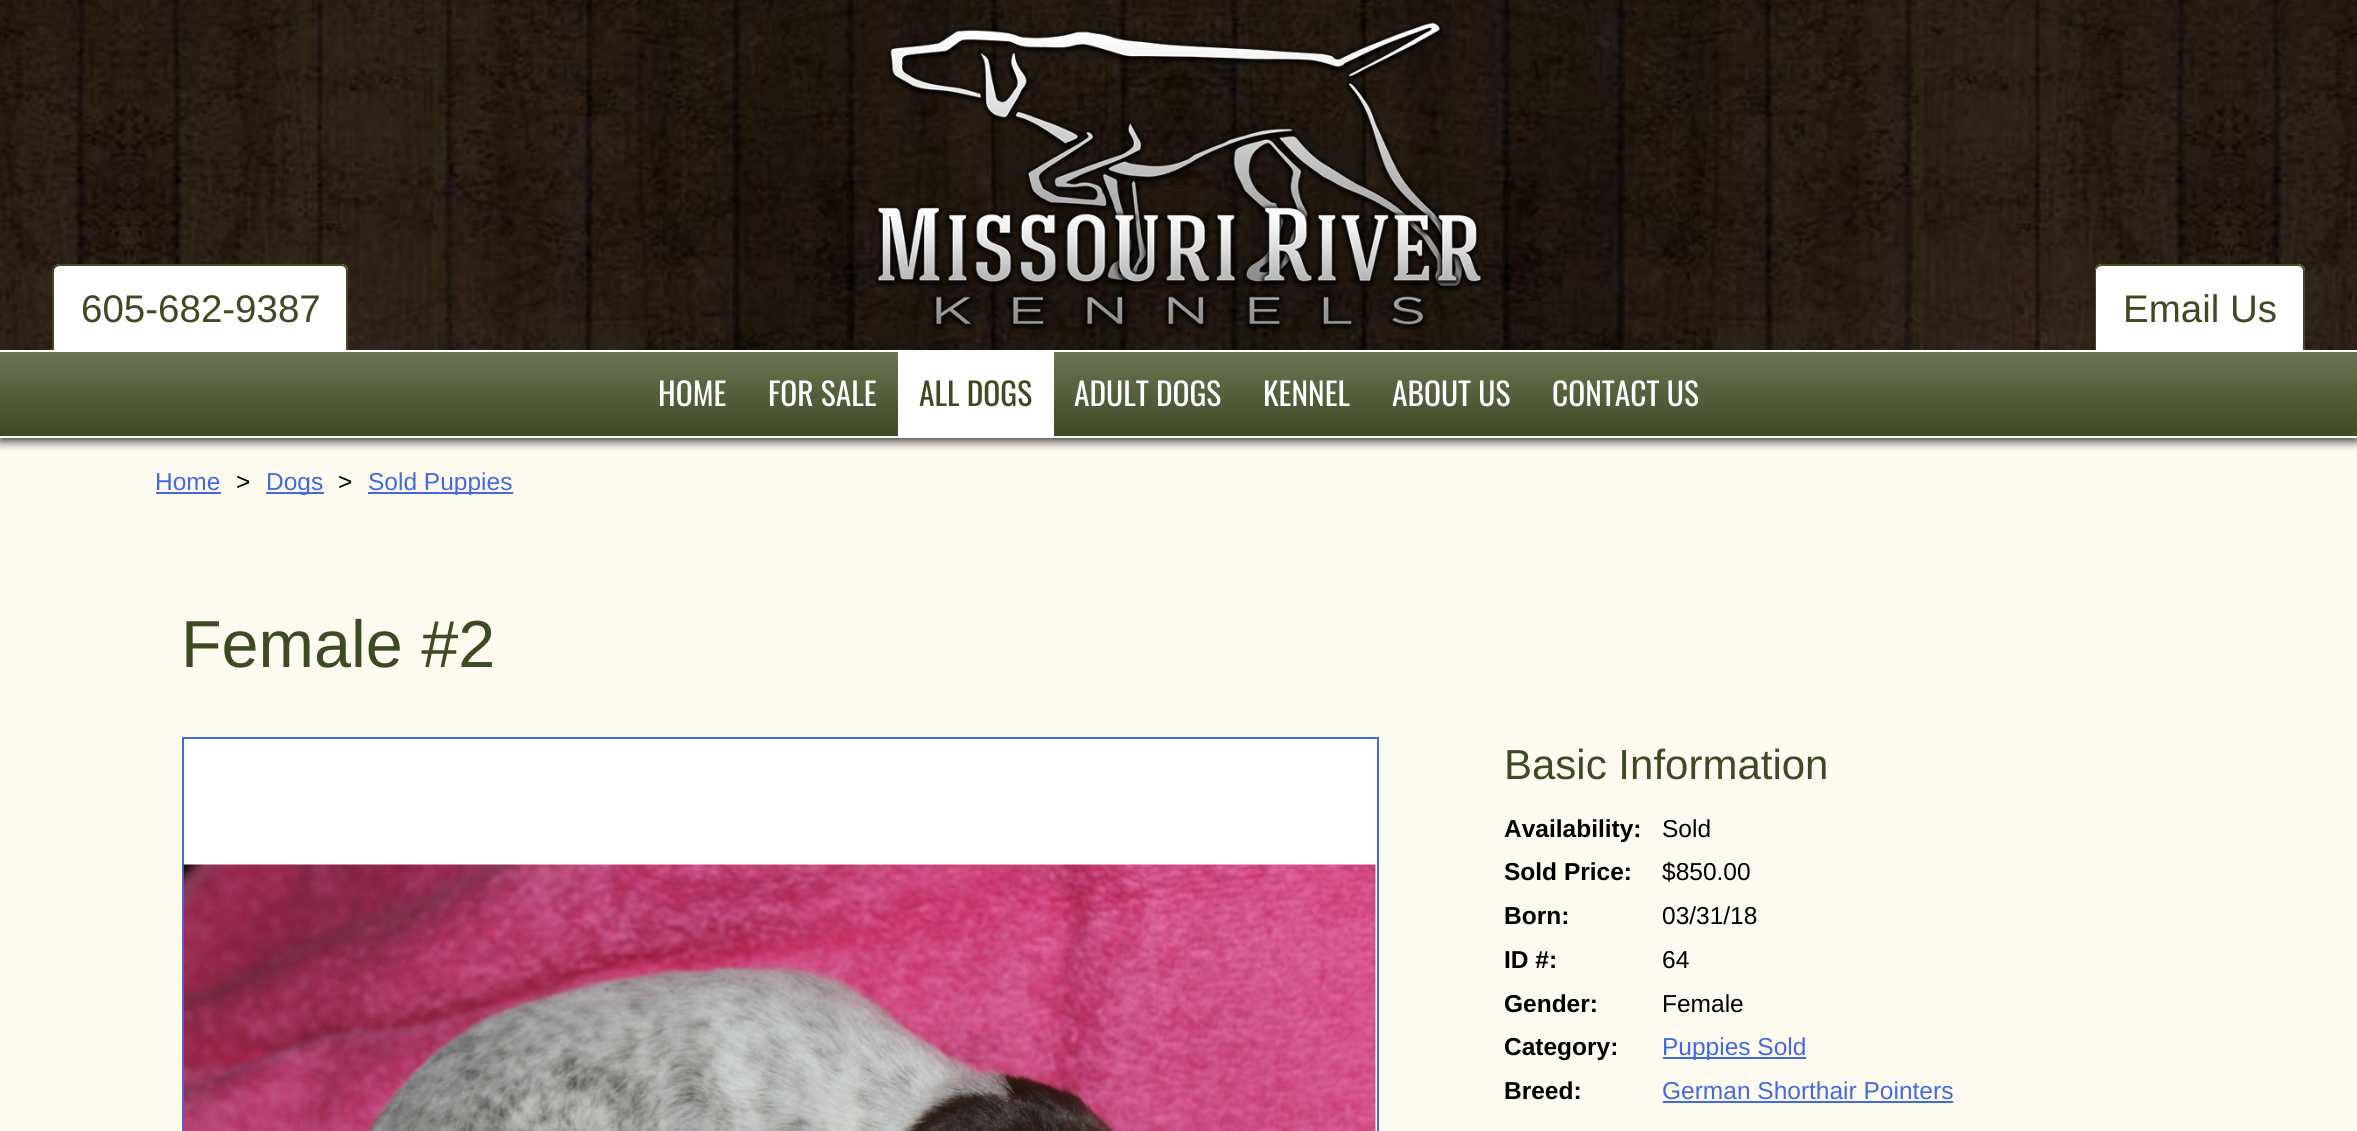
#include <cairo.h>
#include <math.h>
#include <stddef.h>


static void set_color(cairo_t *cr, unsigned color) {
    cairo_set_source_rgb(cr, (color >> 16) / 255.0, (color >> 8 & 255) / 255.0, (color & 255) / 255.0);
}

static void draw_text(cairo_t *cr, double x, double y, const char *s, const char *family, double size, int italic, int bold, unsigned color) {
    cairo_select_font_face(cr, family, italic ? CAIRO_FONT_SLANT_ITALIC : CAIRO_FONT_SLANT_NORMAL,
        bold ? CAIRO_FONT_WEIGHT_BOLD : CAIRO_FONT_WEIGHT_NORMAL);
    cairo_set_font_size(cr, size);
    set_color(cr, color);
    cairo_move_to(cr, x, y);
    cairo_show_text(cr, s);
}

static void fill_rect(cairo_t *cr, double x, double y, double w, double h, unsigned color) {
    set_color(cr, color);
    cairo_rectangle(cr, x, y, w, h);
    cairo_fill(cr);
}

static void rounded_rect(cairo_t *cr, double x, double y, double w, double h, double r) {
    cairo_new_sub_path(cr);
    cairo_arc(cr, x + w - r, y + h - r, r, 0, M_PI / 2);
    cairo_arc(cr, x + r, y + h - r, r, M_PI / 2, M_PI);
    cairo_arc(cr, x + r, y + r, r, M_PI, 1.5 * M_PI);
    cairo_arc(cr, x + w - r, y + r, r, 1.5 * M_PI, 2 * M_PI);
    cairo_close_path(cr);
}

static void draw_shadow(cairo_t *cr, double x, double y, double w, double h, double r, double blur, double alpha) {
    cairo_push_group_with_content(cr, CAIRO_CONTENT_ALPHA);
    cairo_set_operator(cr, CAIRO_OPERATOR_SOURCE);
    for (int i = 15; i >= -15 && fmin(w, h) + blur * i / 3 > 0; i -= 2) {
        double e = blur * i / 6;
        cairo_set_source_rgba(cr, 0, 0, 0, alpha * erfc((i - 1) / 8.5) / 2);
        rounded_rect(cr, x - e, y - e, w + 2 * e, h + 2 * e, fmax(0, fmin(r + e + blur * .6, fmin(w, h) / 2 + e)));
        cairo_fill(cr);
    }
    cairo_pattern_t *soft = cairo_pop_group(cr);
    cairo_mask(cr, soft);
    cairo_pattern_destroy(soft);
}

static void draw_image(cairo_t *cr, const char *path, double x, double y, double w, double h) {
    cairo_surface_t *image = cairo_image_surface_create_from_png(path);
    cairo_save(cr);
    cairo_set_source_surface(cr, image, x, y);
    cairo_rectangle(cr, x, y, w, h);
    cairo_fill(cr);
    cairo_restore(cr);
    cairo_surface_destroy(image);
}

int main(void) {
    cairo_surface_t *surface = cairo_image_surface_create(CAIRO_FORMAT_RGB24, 2357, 1131);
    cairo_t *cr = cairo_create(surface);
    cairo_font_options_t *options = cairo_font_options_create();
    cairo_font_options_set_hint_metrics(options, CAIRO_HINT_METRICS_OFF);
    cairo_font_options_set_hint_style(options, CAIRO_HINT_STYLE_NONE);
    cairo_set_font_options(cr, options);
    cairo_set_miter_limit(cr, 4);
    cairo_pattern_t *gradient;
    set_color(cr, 0xFFFAF0);
    cairo_paint(cr);
    set_color(cr, 0x000000);
    draw_shadow(cr, 0, 4, 2357, 437, 0, 5, 0.8);
    draw_image(cr, "assets/img1.png", 0, 0, 2357, 350);
    set_color(cr, 0xFFFFFF);
    cairo_new_path(cr);
    cairo_move_to(cr, 60, 264);
    cairo_line_to(cr, 341, 264);
    cairo_curve_to(cr, 345, 264, 348, 267, 348, 271);
    cairo_line_to(cr, 348, 350);
    cairo_line_to(cr, 53, 350);
    cairo_line_to(cr, 53, 271);
    cairo_curve_to(cr, 53, 267, 56, 264, 60, 264);
    cairo_close_path(cr);
    cairo_fill(cr);
    set_color(cr, 0x3E4A24);
    cairo_set_fill_rule(cr, CAIRO_FILL_RULE_EVEN_ODD);
    cairo_new_path(cr);
    cairo_move_to(cr, 60, 264);
    cairo_line_to(cr, 341, 264);
    cairo_curve_to(cr, 345, 264, 348, 267, 348, 271);
    cairo_line_to(cr, 348, 350);
    cairo_line_to(cr, 52, 350);
    cairo_line_to(cr, 52, 271);
    cairo_curve_to(cr, 52, 267, 56, 264, 60, 264);
    cairo_close_path(cr);
    cairo_move_to(cr, 60, 266);
    cairo_line_to(cr, 341, 266);
    cairo_curve_to(cr, 344, 266, 346, 268, 346, 271);
    cairo_line_to(cr, 346, 350);
    cairo_line_to(cr, 54, 350);
    cairo_line_to(cr, 54, 271);
    cairo_curve_to(cr, 54, 268, 57, 266, 60, 266);
    cairo_close_path(cr);
    cairo_fill(cr);
    draw_text(cr, 81, 322, "605-682-9387", "Liberation Sans", 38.5, 0, 0, 0x3E4A24);
    draw_image(cr, "assets/img2.png", 874, 20, 611, 310);
    set_color(cr, 0xFFFFFF);
    cairo_new_path(cr);
    cairo_move_to(cr, 2102, 264);
    cairo_line_to(cr, 2298, 264);
    cairo_curve_to(cr, 2302, 264, 2305, 267, 2305, 271);
    cairo_line_to(cr, 2305, 350);
    cairo_line_to(cr, 2095, 350);
    cairo_line_to(cr, 2095, 271);
    cairo_curve_to(cr, 2095, 267, 2098, 264, 2102, 264);
    cairo_close_path(cr);
    cairo_fill(cr);
    set_color(cr, 0x3E4A24);
    cairo_new_path(cr);
    cairo_move_to(cr, 2102, 264);
    cairo_line_to(cr, 2298, 264);
    cairo_curve_to(cr, 2302, 264, 2305, 267, 2305, 271);
    cairo_line_to(cr, 2305, 350);
    cairo_line_to(cr, 2095, 350);
    cairo_line_to(cr, 2095, 271);
    cairo_curve_to(cr, 2095, 267, 2098, 264, 2102, 264);
    cairo_close_path(cr);
    cairo_move_to(cr, 2102, 266);
    cairo_line_to(cr, 2298, 266);
    cairo_curve_to(cr, 2301, 266, 2303, 268, 2303, 271);
    cairo_line_to(cr, 2303, 350);
    cairo_line_to(cr, 2096, 350);
    cairo_line_to(cr, 2096, 271);
    cairo_curve_to(cr, 2096, 268, 2099, 266, 2102, 266);
    cairo_close_path(cr);
    cairo_fill(cr);
    draw_text(cr, 2123, 322, "Email Us", "Liberation Sans", 38.5, 0, 0, 0x3E4A24);
    gradient = cairo_pattern_create_linear(1179, 352, 1179, 436);
    cairo_pattern_add_color_stop_rgba(gradient, 0, 0.416, 0.459, 0.325, 1);
    cairo_pattern_add_color_stop_rgba(gradient, 1, 0.243, 0.29, 0.141, 1);
    cairo_set_source(cr, gradient);
    cairo_pattern_destroy(gradient);
    cairo_rectangle(cr, 0, 352, 2357, 84);
    cairo_fill(cr);
    fill_rect(cr, 0, 350, 2357, 2, 0xFFFFFF);
    fill_rect(cr, 0, 436, 2357, 2, 0xFFFFFF);
    draw_text(cr, 658, 406, "HOME", "Oswald", 31.5, 0, 0, 0xFFFFFF);
    draw_text(cr, 768, 406, "FOR SALE", "Oswald", 31.5, 0, 0, 0xFFFFFF);
    fill_rect(cr, 898, 352, 156, 84, 0xFFFFFF);
    draw_text(cr, 919, 406, "ALL DOGS", "Oswald", 31.5, 0, 0, 0x3E4A24);
    draw_text(cr, 1074, 406, "ADULT DOGS", "Oswald", 31.5, 0, 0, 0xFFFFFF);
    draw_text(cr, 1263, 406, "KENNEL", "Oswald", 31.5, 0, 0, 0xFFFFFF);
    draw_text(cr, 1392, 406, "ABOUT US", "Oswald", 31.5, 0, 0, 0xFFFFFF);
    draw_text(cr, 1552, 406, "CONTACT US", "Oswald", 31.5, 0, 0, 0xFFFFFF);
    draw_text(cr, 155, 490, "Home", "Liberation Sans", 24.5, 0, 0, 0x4169E1);
    fill_rect(cr, 156, 492, 65, 2, 0x4169E1);
    draw_text(cr, 236, 490, ">", "Liberation Sans", 24.5, 0, 0, 0x000000);
    fill_rect(cr, 266, 492, 58, 2, 0x4169E1);
    draw_text(cr, 266, 490, "Dogs", "Liberation Sans", 24.5, 0, 0, 0x4169E1);
    draw_text(cr, 338, 490, ">", "Liberation Sans", 24.5, 0, 0, 0x000000);
    fill_rect(cr, 368, 492, 145, 2, 0x4169E1);
    draw_text(cr, 368, 490, "Sold Puppies", "Liberation Sans", 24.5, 0, 0, 0x4169E1);
    draw_text(cr, 181, 667, "Female #2", "Liberation Sans", 66.5, 0, 0, 0x3E4A24);
    set_color(cr, 0xFFFFFF);
    cairo_rectangle(cr, 183, 738, 1195, 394);
    cairo_fill_preserve(cr);
    set_color(cr, 0x4169E1);
    cairo_stroke(cr);
    draw_image(cr, "assets/img3.png", 183, 864, 1193, 267);
    draw_text(cr, 1504, 779, "Basic Information", "Liberation Sans", 42, 0, 0, 0x3E4A24);
    draw_text(cr, 1504, 837, "Availability:", "Liberation Sans", 24.5, 0, 1, 0x000000);
    draw_text(cr, 1662, 837, "Sold", "Liberation Sans", 24.5, 0, 0, 0x000000);
    draw_text(cr, 1504, 880, "Sold Price:", "Liberation Sans", 24.5, 0, 1, 0x000000);
    draw_text(cr, 1662, 880, "$850.00", "Liberation Sans", 24.5, 0, 0, 0x000000);
    draw_text(cr, 1504, 924, "Born:", "Liberation Sans", 24.5, 0, 1, 0x000000);
    draw_text(cr, 1662, 924, "03/31/18", "Liberation Sans", 24.5, 0, 0, 0x000000);
    draw_text(cr, 1504, 968, "ID #:", "Liberation Sans", 24.5, 0, 1, 0x000000);
    draw_text(cr, 1662, 968, "64", "Liberation Sans", 24.5, 0, 0, 0x000000);
    draw_text(cr, 1504, 1012, "Gender:", "Liberation Sans", 24.5, 0, 1, 0x000000);
    draw_text(cr, 1662, 1012, "Female", "Liberation Sans", 24.5, 0, 0, 0x000000);
    draw_text(cr, 1504, 1055, "Category:", "Liberation Sans", 24.5, 0, 1, 0x000000);
    fill_rect(cr, 1663, 1057, 143, 2, 0x4169E1);
    draw_text(cr, 1662, 1055, "Puppies Sold", "Liberation Sans", 24.5, 0, 0, 0x4169E1);
    draw_text(cr, 1504, 1099, "Breed:", "Liberation Sans", 24.5, 0, 1, 0x000000);
    draw_text(cr, 1662, 1099, "German Shorthair Pointers", "Liberation Sans", 24.5, 0, 0, 0x4169E1);
    fill_rect(cr, 1663, 1101, 290, 2, 0x4169E1);
    cairo_surface_write_to_png(surface, "output.png");
    cairo_font_options_destroy(options);
    cairo_destroy(cr);
    cairo_surface_destroy(surface);
    return 0;
}
